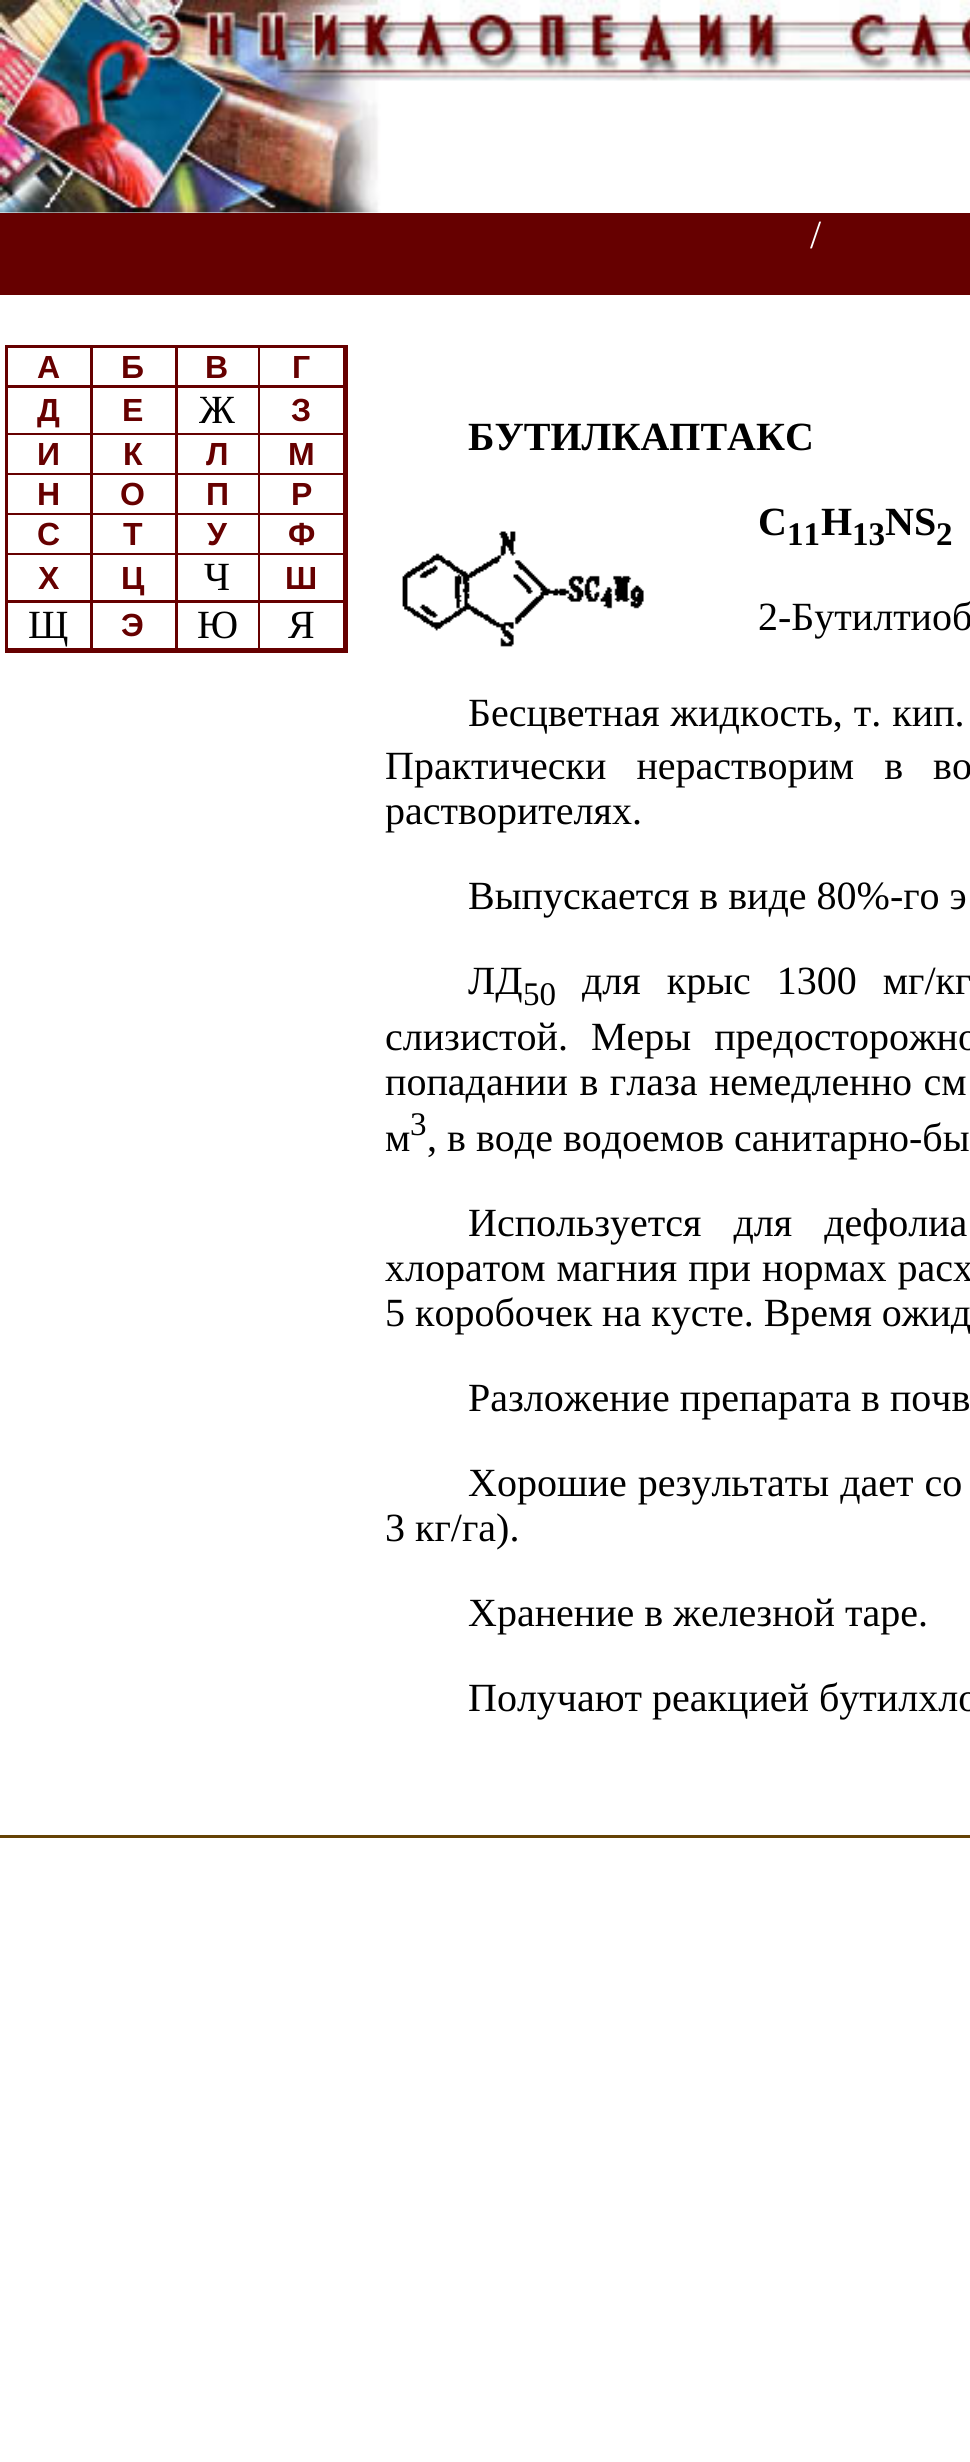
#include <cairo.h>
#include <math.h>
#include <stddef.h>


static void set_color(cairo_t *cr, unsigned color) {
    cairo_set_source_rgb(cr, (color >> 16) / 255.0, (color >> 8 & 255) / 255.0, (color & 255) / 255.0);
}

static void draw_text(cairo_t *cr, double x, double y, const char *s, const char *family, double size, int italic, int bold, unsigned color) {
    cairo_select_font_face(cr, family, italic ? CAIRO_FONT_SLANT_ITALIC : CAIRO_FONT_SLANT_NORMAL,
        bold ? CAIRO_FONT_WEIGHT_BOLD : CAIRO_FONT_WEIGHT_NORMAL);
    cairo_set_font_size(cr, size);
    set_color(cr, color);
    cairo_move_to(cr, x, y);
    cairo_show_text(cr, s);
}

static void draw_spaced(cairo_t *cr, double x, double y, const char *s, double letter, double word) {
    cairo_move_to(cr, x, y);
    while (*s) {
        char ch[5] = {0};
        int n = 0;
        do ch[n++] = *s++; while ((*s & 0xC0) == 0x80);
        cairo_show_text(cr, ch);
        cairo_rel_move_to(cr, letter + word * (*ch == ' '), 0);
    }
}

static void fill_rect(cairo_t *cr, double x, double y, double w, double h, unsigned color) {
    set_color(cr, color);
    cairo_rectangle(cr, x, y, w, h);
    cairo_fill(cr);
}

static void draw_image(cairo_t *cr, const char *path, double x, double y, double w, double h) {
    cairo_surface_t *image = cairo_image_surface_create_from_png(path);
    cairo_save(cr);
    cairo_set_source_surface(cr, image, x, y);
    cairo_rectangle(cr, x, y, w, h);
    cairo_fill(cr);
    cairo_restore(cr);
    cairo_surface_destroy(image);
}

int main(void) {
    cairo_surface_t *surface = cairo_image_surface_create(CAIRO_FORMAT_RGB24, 970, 2462);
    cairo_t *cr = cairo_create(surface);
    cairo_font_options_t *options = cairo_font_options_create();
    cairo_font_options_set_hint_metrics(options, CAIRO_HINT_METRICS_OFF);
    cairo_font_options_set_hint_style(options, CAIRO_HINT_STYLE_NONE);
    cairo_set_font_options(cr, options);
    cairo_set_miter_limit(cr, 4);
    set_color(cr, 0xFFFFFF);
    cairo_paint(cr);
    draw_image(cr, "assets/img1.png", 0, 0, 970, 213);
    fill_rect(cr, 0, 213, 970, 82, 0x660000);
    draw_text(cr, 810, 248, "/", "Liberation Serif", 40, 0, 0, 0xFFFFFF);
    fill_rect(cr, 5, 345, 343, 308, 0x660000);
    fill_rect(cr, 8, 348, 82, 37, 0xFFFFFF);
    draw_text(cr, 37, 378, "А", "Liberation Sans", 32, 0, 1, 0x660000);
    fill_rect(cr, 93, 348, 82, 37, 0xFFFFFF);
    draw_text(cr, 121, 378, "Б", "Liberation Sans", 32, 0, 1, 0x660000);
    fill_rect(cr, 178, 348, 80, 37, 0xFFFFFF);
    draw_text(cr, 205, 378, "В", "Liberation Sans", 32, 0, 1, 0x660000);
    fill_rect(cr, 260, 348, 83, 37, 0xFFFFFF);
    draw_text(cr, 292, 378, "Г", "Liberation Sans", 32, 0, 1, 0x660000);
    fill_rect(cr, 8, 388, 82, 45, 0xFFFFFF);
    draw_text(cr, 37, 421, "Д", "Liberation Sans", 32, 0, 1, 0x660000);
    fill_rect(cr, 93, 388, 82, 45, 0xFFFFFF);
    draw_text(cr, 122, 421, "Е", "Liberation Sans", 32, 0, 1, 0x660000);
    fill_rect(cr, 178, 388, 80, 45, 0xFFFFFF);
    draw_text(cr, 199, 423, "Ж", "Liberation Serif", 40, 0, 0, 0x000000);
    fill_rect(cr, 260, 388, 83, 45, 0xFFFFFF);
    draw_text(cr, 291, 421, "З", "Liberation Sans", 32, 0, 1, 0x660000);
    fill_rect(cr, 8, 435, 82, 38, 0xFFFFFF);
    draw_text(cr, 37, 465, "И", "Liberation Sans", 32, 0, 1, 0x660000);
    fill_rect(cr, 93, 435, 82, 38, 0xFFFFFF);
    draw_text(cr, 123, 465, "К", "Liberation Sans", 32, 0, 1, 0x660000);
    fill_rect(cr, 178, 435, 80, 38, 0xFFFFFF);
    draw_text(cr, 206, 465, "Л", "Liberation Sans", 32, 0, 1, 0x660000);
    fill_rect(cr, 260, 435, 83, 38, 0xFFFFFF);
    draw_text(cr, 288, 465, "М", "Liberation Sans", 32, 0, 1, 0x660000);
    fill_rect(cr, 8, 475, 82, 38, 0xFFFFFF);
    draw_text(cr, 37, 505, "Н", "Liberation Sans", 32, 0, 1, 0x660000);
    fill_rect(cr, 93, 475, 82, 38, 0xFFFFFF);
    draw_text(cr, 120, 505, "О", "Liberation Sans", 32, 0, 1, 0x660000);
    fill_rect(cr, 178, 475, 80, 38, 0xFFFFFF);
    draw_text(cr, 206, 505, "П", "Liberation Sans", 32, 0, 1, 0x660000);
    fill_rect(cr, 260, 475, 83, 38, 0xFFFFFF);
    draw_text(cr, 291, 505, "Р", "Liberation Sans", 32, 0, 1, 0x660000);
    fill_rect(cr, 8, 515, 82, 38, 0xFFFFFF);
    draw_text(cr, 37, 545, "С", "Liberation Sans", 32, 0, 1, 0x660000);
    fill_rect(cr, 93, 515, 82, 38, 0xFFFFFF);
    draw_text(cr, 123, 545, "Т", "Liberation Sans", 32, 0, 1, 0x660000);
    fill_rect(cr, 178, 515, 80, 38, 0xFFFFFF);
    draw_text(cr, 207, 545, "У", "Liberation Sans", 32, 0, 1, 0x660000);
    fill_rect(cr, 260, 515, 83, 38, 0xFFFFFF);
    draw_text(cr, 288, 545, "Ф", "Liberation Sans", 32, 0, 1, 0x660000);
    fill_rect(cr, 8, 555, 82, 45, 0xFFFFFF);
    draw_text(cr, 38, 589, "Х", "Liberation Sans", 32, 0, 1, 0x660000);
    fill_rect(cr, 93, 555, 82, 45, 0xFFFFFF);
    draw_text(cr, 121, 589, "Ц", "Liberation Sans", 32, 0, 1, 0x660000);
    fill_rect(cr, 178, 555, 80, 45, 0xFFFFFF);
    draw_text(cr, 204, 590, "Ч", "Liberation Serif", 40, 0, 0, 0x000000);
    fill_rect(cr, 260, 555, 83, 45, 0xFFFFFF);
    draw_text(cr, 285, 589, "Ш", "Liberation Sans", 32, 0, 1, 0x660000);
    fill_rect(cr, 8, 603, 82, 45, 0xFFFFFF);
    draw_text(cr, 28, 638, "Щ", "Liberation Serif", 40, 0, 0, 0x000000);
    fill_rect(cr, 93, 603, 82, 45, 0xFFFFFF);
    draw_text(cr, 121, 636, "Э", "Liberation Sans", 32, 0, 1, 0x660000);
    fill_rect(cr, 178, 603, 80, 45, 0xFFFFFF);
    draw_text(cr, 197, 638, "Ю", "Liberation Serif", 40, 0, 0, 0x000000);
    fill_rect(cr, 260, 603, 83, 45, 0xFFFFFF);
    draw_text(cr, 288, 638, "Я", "Liberation Serif", 40, 0, 0, 0x000000);
    draw_text(cr, 468, 450, "БУТИЛКАПТАКС", "Liberation Serif", 40, 0, 1, 0x000000);
    draw_text(cr, 758, 535, "C", "Liberation Serif", 40, 0, 1, 0x000000);
    draw_text(cr, 787, 545, "11", "Liberation Serif", 33, 0, 1, 0x000000);
    draw_text(cr, 821, 535, "H", "Liberation Serif", 40, 0, 1, 0x000000);
    draw_text(cr, 852, 545, "13", "Liberation Serif", 33, 0, 1, 0x000000);
    draw_text(cr, 885, 535, "NS", "Liberation Serif", 40, 0, 1, 0x000000);
    draw_text(cr, 936, 545, "2", "Liberation Serif", 33, 0, 1, 0x000000);
    draw_image(cr, "assets/img2.png", 402, 531, 242, 116);
    draw_text(cr, 758, 630, "2-Бутилтиоб", "Liberation Serif", 40, 0, 0, 0x000000);
    draw_spaced(cr, 468, 726, "Бесцветная жидкость, т. кип.", 0, 1);
    draw_spaced(cr, 385, 779, "Практически нерастворим в во", 0, 20);
    draw_text(cr, 385, 824, "растворителях.", "Liberation Serif", 40, 0, 0, 0x000000);
    draw_text(cr, 468, 909, "Выпускается в виде 80%-го э", "Liberation Serif", 40, 0, 0, 0x000000);
    draw_text(cr, 468, 994, "ЛД", "Liberation Serif", 40, 0, 0, 0x000000);
    draw_text(cr, 523, 1005, "50", "Liberation Serif", 33, 0, 0, 0x000000);
    cairo_set_font_size(cr, 40);
    draw_spaced(cr, 582, 994, "для крыс 1300 мг/кг", 0, 16);
    draw_spaced(cr, 385, 1050, "слизистой. Меры предосторожно", 0, 13);
    draw_spaced(cr, 385, 1095, "попадании в глаза немедленно см", 0, 1.5);
    draw_text(cr, 385, 1151, "м", "Liberation Serif", 40, 0, 0, 0x000000);
    draw_text(cr, 410, 1135, "3", "Liberation Serif", 33, 0, 0, 0x000000);
    draw_text(cr, 427, 1151, ", в воде водоемов санитарно-бы", "Liberation Serif", 40, 0, 0, 0x000000);
    draw_spaced(cr, 468, 1236, "Используется для дефолиа", 0, 22);
    draw_spaced(cr, 385, 1281, "хлоратом магния при нормах расх", 0, 1);
    draw_text(cr, 385, 1326, "5 коробочек на кусте. Время ожид", "Liberation Serif", 40, 0, 0, 0x000000);
    draw_text(cr, 468, 1411, "Разложение препарата в почв", "Liberation Serif", 40, 0, 0, 0x000000);
    draw_spaced(cr, 468, 1496, "Хорошие результаты дает со", 0, 1);
    draw_text(cr, 385, 1541, "3 кг/га).", "Liberation Serif", 40, 0, 0, 0x000000);
    draw_text(cr, 468, 1626, "Хранение в железной таре.", "Liberation Serif", 40, 0, 0, 0x000000);
    draw_text(cr, 468, 1711, "Получают реакцией бутилхло", "Liberation Serif", 40, 0, 0, 0x000000);
    fill_rect(cr, 0, 1835, 970, 3, 0x654205);
    cairo_surface_write_to_png(surface, "output.png");
    cairo_font_options_destroy(options);
    cairo_destroy(cr);
    cairo_surface_destroy(surface);
    return 0;
}
